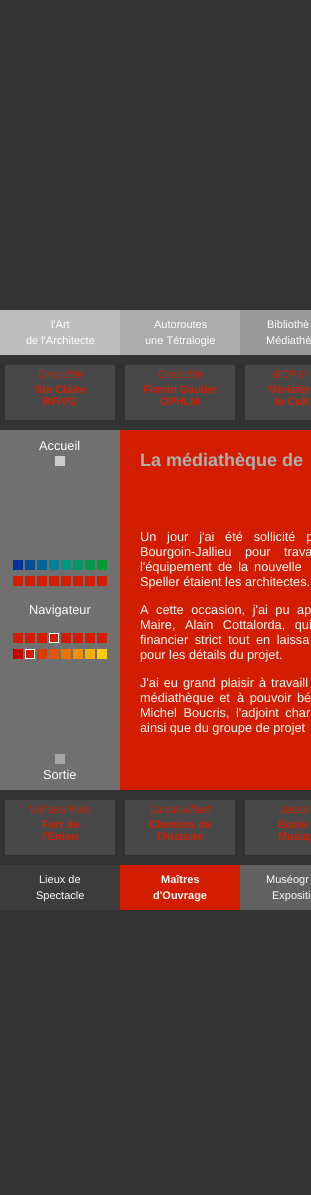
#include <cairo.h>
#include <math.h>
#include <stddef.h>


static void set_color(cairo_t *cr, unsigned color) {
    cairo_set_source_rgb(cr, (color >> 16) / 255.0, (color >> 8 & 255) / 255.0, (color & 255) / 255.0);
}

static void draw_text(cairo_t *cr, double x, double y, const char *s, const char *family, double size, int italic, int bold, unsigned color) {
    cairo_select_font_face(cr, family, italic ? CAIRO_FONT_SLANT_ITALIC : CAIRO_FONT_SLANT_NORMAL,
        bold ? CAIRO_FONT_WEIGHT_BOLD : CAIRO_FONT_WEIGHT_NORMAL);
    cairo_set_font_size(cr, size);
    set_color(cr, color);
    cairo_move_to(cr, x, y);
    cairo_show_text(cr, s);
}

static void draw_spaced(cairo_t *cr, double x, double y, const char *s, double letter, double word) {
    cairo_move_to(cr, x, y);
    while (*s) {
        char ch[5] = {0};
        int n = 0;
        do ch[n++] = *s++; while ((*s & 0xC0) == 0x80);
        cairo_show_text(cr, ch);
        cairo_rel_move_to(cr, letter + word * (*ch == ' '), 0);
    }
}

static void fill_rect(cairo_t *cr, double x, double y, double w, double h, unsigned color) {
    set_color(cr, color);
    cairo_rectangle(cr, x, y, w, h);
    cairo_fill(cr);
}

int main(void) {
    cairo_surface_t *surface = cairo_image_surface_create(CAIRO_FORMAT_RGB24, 311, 1195);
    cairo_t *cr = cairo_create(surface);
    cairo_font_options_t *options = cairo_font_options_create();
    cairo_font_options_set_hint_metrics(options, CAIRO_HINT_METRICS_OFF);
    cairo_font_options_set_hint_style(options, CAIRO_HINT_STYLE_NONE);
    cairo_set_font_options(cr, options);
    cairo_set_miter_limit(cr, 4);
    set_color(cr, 0x333333);
    cairo_paint(cr);
    fill_rect(cr, 0, 310, 120, 45, 0xBEBEBE);
    draw_text(cr, 51, 328, "l'Art", "Liberation Sans", 11, 0, 0, 0xFFFFFF);
    draw_text(cr, 26, 344, "de l'Architecte", "Liberation Sans", 11, 0, 0, 0xFFFFFF);
    fill_rect(cr, 120, 310, 120, 45, 0xABABAB);
    draw_text(cr, 154, 328, "Autoroutes", "Liberation Sans", 11, 0, 0, 0xFFFFFF);
    draw_text(cr, 145, 344, "une Tétralogie", "Liberation Sans", 11, 0, 0, 0xFFFFFF);
    fill_rect(cr, 240, 310, 71, 45, 0x989898);
    draw_text(cr, 267, 328, "Bibliothè", "Liberation Sans", 11, 0, 0, 0xFFFFFF);
    draw_text(cr, 266, 344, "Médiathè", "Liberation Sans", 11, 0, 0, 0xFFFFFF);
    fill_rect(cr, 5, 365, 110, 55, 0x484848);
    draw_text(cr, 38, 378, "Grenoble", "Liberation Sans", 11, 1, 0, 0xD31D00);
    draw_text(cr, 35, 393, "Ste Claire", "Liberation Sans", 11, 0, 1, 0xD31D00);
    draw_text(cr, 43, 405, "RFIVG", "Liberation Sans", 11, 0, 1, 0xD31D00);
    fill_rect(cr, 125, 365, 110, 55, 0x484848);
    draw_text(cr, 158, 378, "Grenoble", "Liberation Sans", 11, 1, 0, 0xD31D00);
    draw_text(cr, 143, 393, "Firmin Gautier", "Liberation Sans", 11, 0, 1, 0xD31D00);
    draw_text(cr, 160, 405, "OPHLM", "Liberation Sans", 11, 0, 1, 0xD31D00);
    fill_rect(cr, 245, 365, 66, 55, 0x484848);
    draw_text(cr, 273, 378, "BCP Li", "Liberation Sans", 11, 1, 0, 0xD31D00);
    draw_text(cr, 268, 393, "Ministèr", "Liberation Sans", 11, 0, 1, 0xD31D00);
    draw_text(cr, 275, 405, "la Cult", "Liberation Sans", 11, 0, 1, 0xD31D00);
    fill_rect(cr, 0, 430, 120, 360, 0x707070);
    draw_text(cr, 39, 450, "Accueil", "Liberation Sans", 12.75, 0, 0, 0xFFFFFF);
    fill_rect(cr, 55, 456, 10, 10, 0xCDCDCD);
    fill_rect(cr, 13, 560, 10, 10, 0x003399);
    fill_rect(cr, 25, 560, 10, 10, 0x004C98);
    fill_rect(cr, 37, 560, 10, 10, 0x006599);
    fill_rect(cr, 49, 560, 10, 10, 0x01819A);
    fill_rect(cr, 61, 560, 10, 10, 0x02987F);
    fill_rect(cr, 73, 560, 10, 10, 0x009865);
    fill_rect(cr, 85, 560, 10, 10, 0x00984B);
    fill_rect(cr, 97, 560, 10, 10, 0x039936);
    fill_rect(cr, 13, 576, 10, 10, 0xD21D00);
    fill_rect(cr, 25, 576, 10, 10, 0xD21D00);
    fill_rect(cr, 37, 576, 10, 10, 0xD21D00);
    fill_rect(cr, 49, 576, 10, 10, 0xD21D00);
    fill_rect(cr, 61, 576, 10, 10, 0xD21D00);
    fill_rect(cr, 73, 576, 10, 10, 0xD21D00);
    fill_rect(cr, 85, 576, 10, 10, 0xD21D00);
    fill_rect(cr, 97, 576, 10, 10, 0xD21D00);
    draw_text(cr, 29, 614, "Navigateur", "Liberation Sans", 12.75, 0, 0, 0xFFFFFF);
    fill_rect(cr, 13, 633, 10, 10, 0xD21D00);
    fill_rect(cr, 25, 633, 10, 10, 0xD21D00);
    fill_rect(cr, 37, 633, 10, 10, 0xD21D00);
    cairo_rectangle(cr, 49.5, 633.5, 9, 9);
    set_color(cr, 0xFFFFFF);
    cairo_set_line_width(cr, 1);
    cairo_stroke(cr);
    fill_rect(cr, 61, 633, 10, 10, 0xD21D00);
    fill_rect(cr, 73, 633, 10, 10, 0xD21D00);
    fill_rect(cr, 85, 633, 10, 10, 0xD21D00);
    fill_rect(cr, 97, 633, 10, 10, 0xD21D00);
    fill_rect(cr, 50, 634, 8, 8, 0xD21D00);
    fill_rect(cr, 13, 649, 10, 10, 0xCC0001);
    cairo_rectangle(cr, 25.5, 649.5, 9, 9);
    set_color(cr, 0xFFFFFF);
    cairo_stroke(cr);
    fill_rect(cr, 37, 649, 10, 10, 0xDB3B01);
    fill_rect(cr, 49, 649, 10, 10, 0xE15601);
    fill_rect(cr, 61, 649, 10, 10, 0xE77400);
    fill_rect(cr, 73, 649, 10, 10, 0xF09103);
    fill_rect(cr, 85, 649, 10, 10, 0xF6AE01);
    fill_rect(cr, 97, 649, 10, 10, 0xFFCC00);
    fill_rect(cr, 26, 650, 8, 8, 0xD21D00);
    draw_text(cr, 43, 779, "Sortie", "Liberation Sans", 12.75, 0, 0, 0xFFFFFF);
    fill_rect(cr, 55, 754, 10, 10, 0xA7A7A7);
    fill_rect(cr, 120, 430, 191, 360, 0xD31D00);
    draw_text(cr, 140, 466, "La médiathèque de", "Liberation Sans", 18, 0, 1, 0xAFAFAF);
    cairo_select_font_face(cr, "Liberation Sans", CAIRO_FONT_SLANT_NORMAL, CAIRO_FONT_WEIGHT_NORMAL);
    cairo_set_font_size(cr, 12.75);
    set_color(cr, 0xFFFFFF);
    draw_spaced(cr, 140, 541, "Un jour j'ai été sollicité p", 0, 7.25);
    draw_spaced(cr, 140, 556, "Bourgoin-Jallieu pour trava", 0, 10);
    draw_spaced(cr, 140, 571, "l'équipement de la nouvelle", 0, 2.5);
    draw_text(cr, 140, 586, "Speller étaient les architectes.", "Liberation Sans", 12.75, 0, 0, 0xFFFFFF);
    draw_spaced(cr, 140, 614, "A cette occasion, j'ai pu ap", 0, 4);
    draw_spaced(cr, 140, 629, "Maire, Alain Cottalorda, qui", 0, 6);
    draw_spaced(cr, 140, 644, "financier strict tout en laissa", 0, 3);
    draw_text(cr, 140, 659, "pour les détails du projet.", "Liberation Sans", 12.75, 0, 0, 0xFFFFFF);
    draw_spaced(cr, 140, 687, "J'ai eu grand plaisir à travaill", 0, 1.5);
    draw_spaced(cr, 140, 702, "médiathèque et", 0, 2);
    draw_spaced(cr, 237, 702, "à pouvoir bé", 0, 2);
    draw_spaced(cr, 140, 717, "Michel Boucris, l'adjoint char", 0, 3);
    draw_text(cr, 140, 732, "ainsi que du groupe de projet", "Liberation Sans", 12.75, 0, 0, 0xFFFFFF);
    fill_rect(cr, 5, 800, 110, 55, 0x484848);
    draw_text(cr, 29, 813, "Val des Prés", "Liberation Sans", 11, 1, 0, 0xD31D00);
    draw_text(cr, 42, 828, "Fort de", "Liberation Sans", 11, 0, 1, 0xD31D00);
    draw_text(cr, 42, 840, "l'Enlon", "Liberation Sans", 11, 0, 1, 0xD31D00);
    fill_rect(cr, 125, 800, 110, 55, 0x484848);
    draw_text(cr, 150, 813, "Lanslevillard", "Liberation Sans", 11, 1, 0, 0xD31D00);
    draw_text(cr, 149, 828, "Chemins de", "Liberation Sans", 11, 0, 1, 0xD31D00);
    draw_text(cr, 157, 840, "l'Histoire", "Liberation Sans", 11, 0, 1, 0xD31D00);
    fill_rect(cr, 245, 800, 66, 55, 0x484848);
    draw_text(cr, 280, 813, "Jassa", "Liberation Sans", 11, 1, 0, 0xD31D00);
    draw_text(cr, 278, 828, "Ecole", "Liberation Sans", 11, 0, 1, 0xD31D00);
    draw_text(cr, 278, 840, "Musiq", "Liberation Sans", 11, 0, 1, 0xD31D00);
    fill_rect(cr, 0, 865, 120, 45, 0x3C3C3C);
    draw_text(cr, 39, 883, "Lieux de", "Liberation Sans", 11, 0, 0, 0xFFFFFF);
    draw_text(cr, 36, 899, "Spectacle", "Liberation Sans", 11, 0, 0, 0xFFFFFF);
    fill_rect(cr, 120, 865, 120, 45, 0xD31D00);
    draw_text(cr, 161, 883, "Maîtres", "Liberation Sans", 11, 0, 1, 0xFFFFFF);
    draw_text(cr, 153, 899, "d'Ouvrage", "Liberation Sans", 11, 0, 1, 0xFFFFFF);
    fill_rect(cr, 240, 865, 71, 45, 0x616161);
    draw_text(cr, 266, 883, "Muséogr", "Liberation Sans", 11, 0, 0, 0xFFFFFF);
    draw_text(cr, 272, 899, "Expositi", "Liberation Sans", 11, 0, 0, 0xFFFFFF);
    cairo_surface_write_to_png(surface, "output.png");
    cairo_font_options_destroy(options);
    cairo_destroy(cr);
    cairo_surface_destroy(surface);
    return 0;
}
